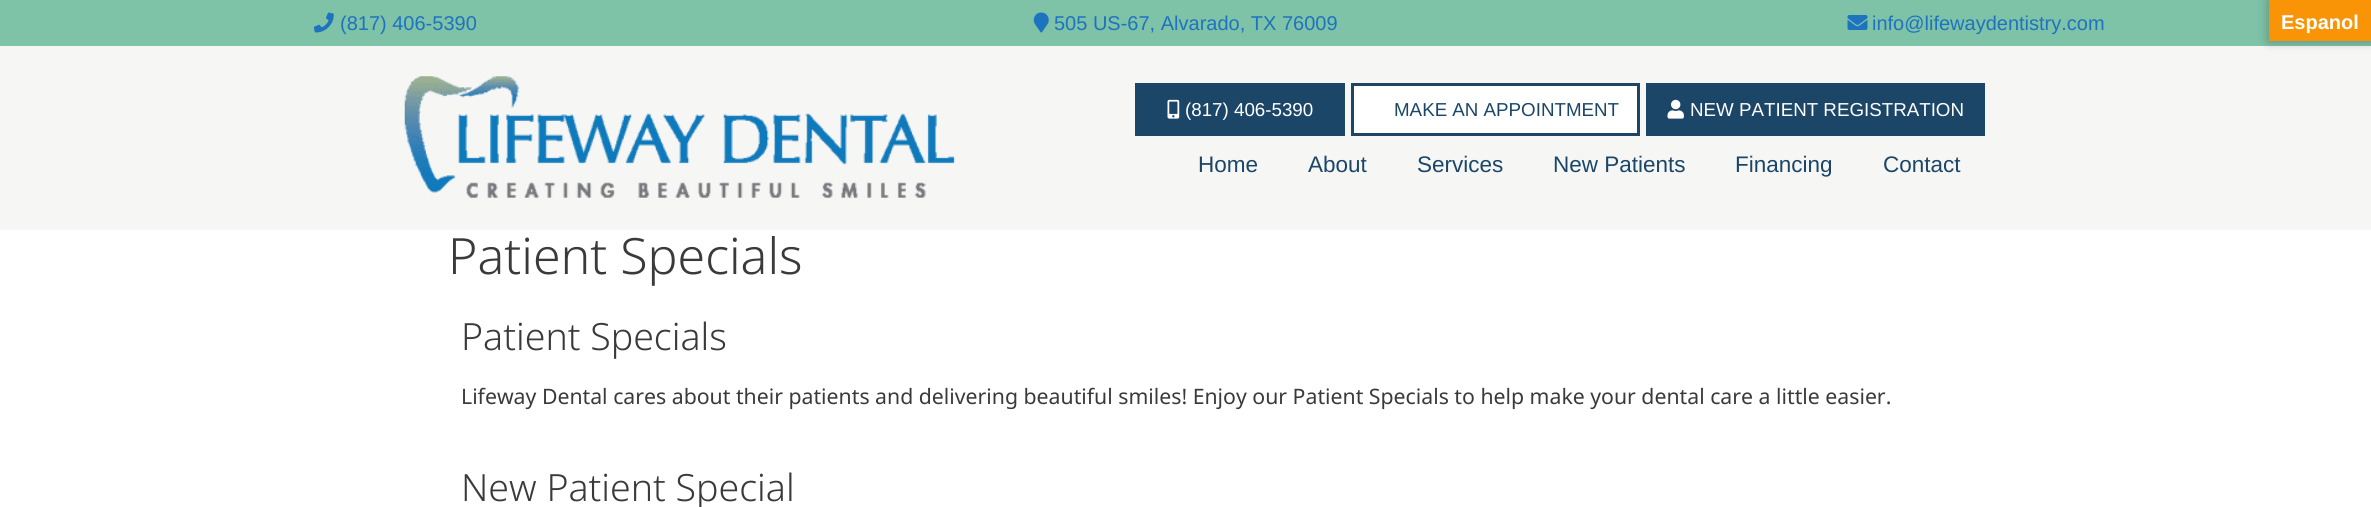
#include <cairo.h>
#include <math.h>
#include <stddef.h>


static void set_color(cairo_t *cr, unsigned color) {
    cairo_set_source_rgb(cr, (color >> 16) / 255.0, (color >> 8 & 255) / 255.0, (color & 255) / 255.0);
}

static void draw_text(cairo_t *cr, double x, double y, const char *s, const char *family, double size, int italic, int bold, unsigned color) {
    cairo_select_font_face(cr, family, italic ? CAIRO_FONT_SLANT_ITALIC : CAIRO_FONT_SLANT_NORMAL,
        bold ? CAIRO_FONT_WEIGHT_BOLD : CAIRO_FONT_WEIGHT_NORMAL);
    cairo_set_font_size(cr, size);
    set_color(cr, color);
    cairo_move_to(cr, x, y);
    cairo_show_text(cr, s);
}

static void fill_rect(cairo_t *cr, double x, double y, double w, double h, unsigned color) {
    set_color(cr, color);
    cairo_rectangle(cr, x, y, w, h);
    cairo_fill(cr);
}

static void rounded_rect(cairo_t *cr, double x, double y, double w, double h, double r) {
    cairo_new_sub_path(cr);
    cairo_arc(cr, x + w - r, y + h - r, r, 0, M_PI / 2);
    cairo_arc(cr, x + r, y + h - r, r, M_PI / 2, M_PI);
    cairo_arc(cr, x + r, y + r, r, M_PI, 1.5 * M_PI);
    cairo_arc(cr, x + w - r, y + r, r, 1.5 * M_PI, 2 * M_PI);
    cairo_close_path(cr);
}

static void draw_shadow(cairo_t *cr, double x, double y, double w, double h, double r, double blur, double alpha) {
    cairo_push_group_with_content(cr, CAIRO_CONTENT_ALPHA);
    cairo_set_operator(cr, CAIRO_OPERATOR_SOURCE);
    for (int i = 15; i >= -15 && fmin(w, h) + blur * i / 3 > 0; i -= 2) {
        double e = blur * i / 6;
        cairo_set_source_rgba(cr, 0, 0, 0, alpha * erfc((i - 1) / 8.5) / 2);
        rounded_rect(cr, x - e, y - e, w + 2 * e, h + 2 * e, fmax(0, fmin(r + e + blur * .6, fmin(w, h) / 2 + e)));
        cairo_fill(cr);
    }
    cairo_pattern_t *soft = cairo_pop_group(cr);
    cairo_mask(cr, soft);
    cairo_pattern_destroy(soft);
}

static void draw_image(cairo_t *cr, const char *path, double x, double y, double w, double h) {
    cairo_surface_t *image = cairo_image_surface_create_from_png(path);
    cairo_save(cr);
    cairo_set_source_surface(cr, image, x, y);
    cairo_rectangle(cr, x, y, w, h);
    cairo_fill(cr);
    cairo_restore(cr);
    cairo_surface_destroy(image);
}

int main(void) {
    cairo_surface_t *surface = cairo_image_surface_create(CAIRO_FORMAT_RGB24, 2371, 507);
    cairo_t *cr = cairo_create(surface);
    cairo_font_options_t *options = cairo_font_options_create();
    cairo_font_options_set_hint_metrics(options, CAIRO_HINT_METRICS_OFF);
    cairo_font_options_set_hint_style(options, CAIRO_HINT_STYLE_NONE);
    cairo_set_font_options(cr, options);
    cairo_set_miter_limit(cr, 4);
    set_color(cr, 0xFFFFFF);
    cairo_paint(cr);
    fill_rect(cr, 0, 0, 2371, 46, 0x7EC2A7);
    draw_image(cr, "assets/img1.png", 313, 12, 21, 21);
    draw_text(cr, 340, 30, "(817) 406-5390", "Liberation Sans", 20, 0, 0, 0x1E73BE);
    draw_image(cr, "assets/img2.png", 1033, 12, 16, 21);
    draw_text(cr, 1054, 30, "505 US-67, Alvarado, TX 76009", "Liberation Sans", 20, 0, 0, 0x1E73BE);
    draw_image(cr, "assets/img3.png", 1847, 15, 21, 15);
    draw_text(cr, 1872, 30, "info@lifewaydentistry.com", "Liberation Sans", 20, 0, 0, 0x1E73BE);
    fill_rect(cr, 0, 46, 2371, 184, 0xF6F6F5);
    draw_image(cr, "assets/img4.png", 404, 76, 551, 122);
    fill_rect(cr, 1135, 83, 210, 53, 0x1B4668);
    draw_image(cr, "assets/img5.png", 1167, 99, 13, 20);
    draw_text(cr, 1185, 116, "(817) 406-5390", "Liberation Sans", 18.75, 0, 0, 0xFFFFFF);
    cairo_rectangle(cr, 1352.5, 84.5, 286, 50);
    cairo_fill_preserve(cr);
    set_color(cr, 0x1B4668);
    cairo_set_line_width(cr, 3);
    cairo_stroke(cr);
    draw_text(cr, 1394, 116, "MAKE AN APPOINTMENT", "Liberation Sans", 18.75, 0, 0, 0x1B4668);
    fill_rect(cr, 1646, 83, 339, 53, 0x1B4668);
    draw_image(cr, "assets/img6.png", 1667, 99, 17, 20);
    draw_text(cr, 1690, 116, "NEW PATIENT REGISTRATION", "Liberation Sans", 18.75, 0, 0, 0xFFFFFF);
    draw_text(cr, 1198, 172, "Home", "Liberation Sans", 22.5, 0, 0, 0x1B4668);
    draw_text(cr, 1308, 172, "About", "Liberation Sans", 22.5, 0, 0, 0x1B4668);
    draw_text(cr, 1417, 172, "Services", "Liberation Sans", 22.5, 0, 0, 0x1B4668);
    draw_text(cr, 1553, 172, "New Patients", "Liberation Sans", 22.5, 0, 0, 0x1B4668);
    draw_text(cr, 1735, 172, "Financing", "Liberation Sans", 22.5, 0, 0, 0x1B4668);
    draw_text(cr, 1883, 172, "Contact", "Liberation Sans", 22.5, 0, 0, 0x1B4668);
    set_color(cr, 0x000000);
    draw_shadow(cr, 2269, 0, 102, 41, 0, 5.5, 0.3);
    fill_rect(cr, 2269, 0, 102, 41, 0xF89406);
    draw_text(cr, 2281, 29, "Espanol", "Liberation Sans", 20, 0, 1, 0xFFFFFF);
    draw_text(cr, 448, 274, "Patient Specials", "Noto Sans Light", 50, 0, 0, 0x3A3A3A);
    draw_text(cr, 461, 350, "Patient Specials", "Noto Sans Light", 37.5, 0, 0, 0x3A3A3A);
    draw_text(cr, 461, 404, "Lifeway Dental cares about their patients and delivering beautiful smiles! Enjoy our Patient Specials to help make your dental care a little easier.", "Noto Sans", 21.25, 0, 0, 0x3A3A3A);
    draw_text(cr, 461, 501, "New Patient Special", "Noto Sans Light", 37.5, 0, 0, 0x3A3A3A);
    cairo_surface_write_to_png(surface, "output.png");
    cairo_font_options_destroy(options);
    cairo_destroy(cr);
    cairo_surface_destroy(surface);
    return 0;
}
